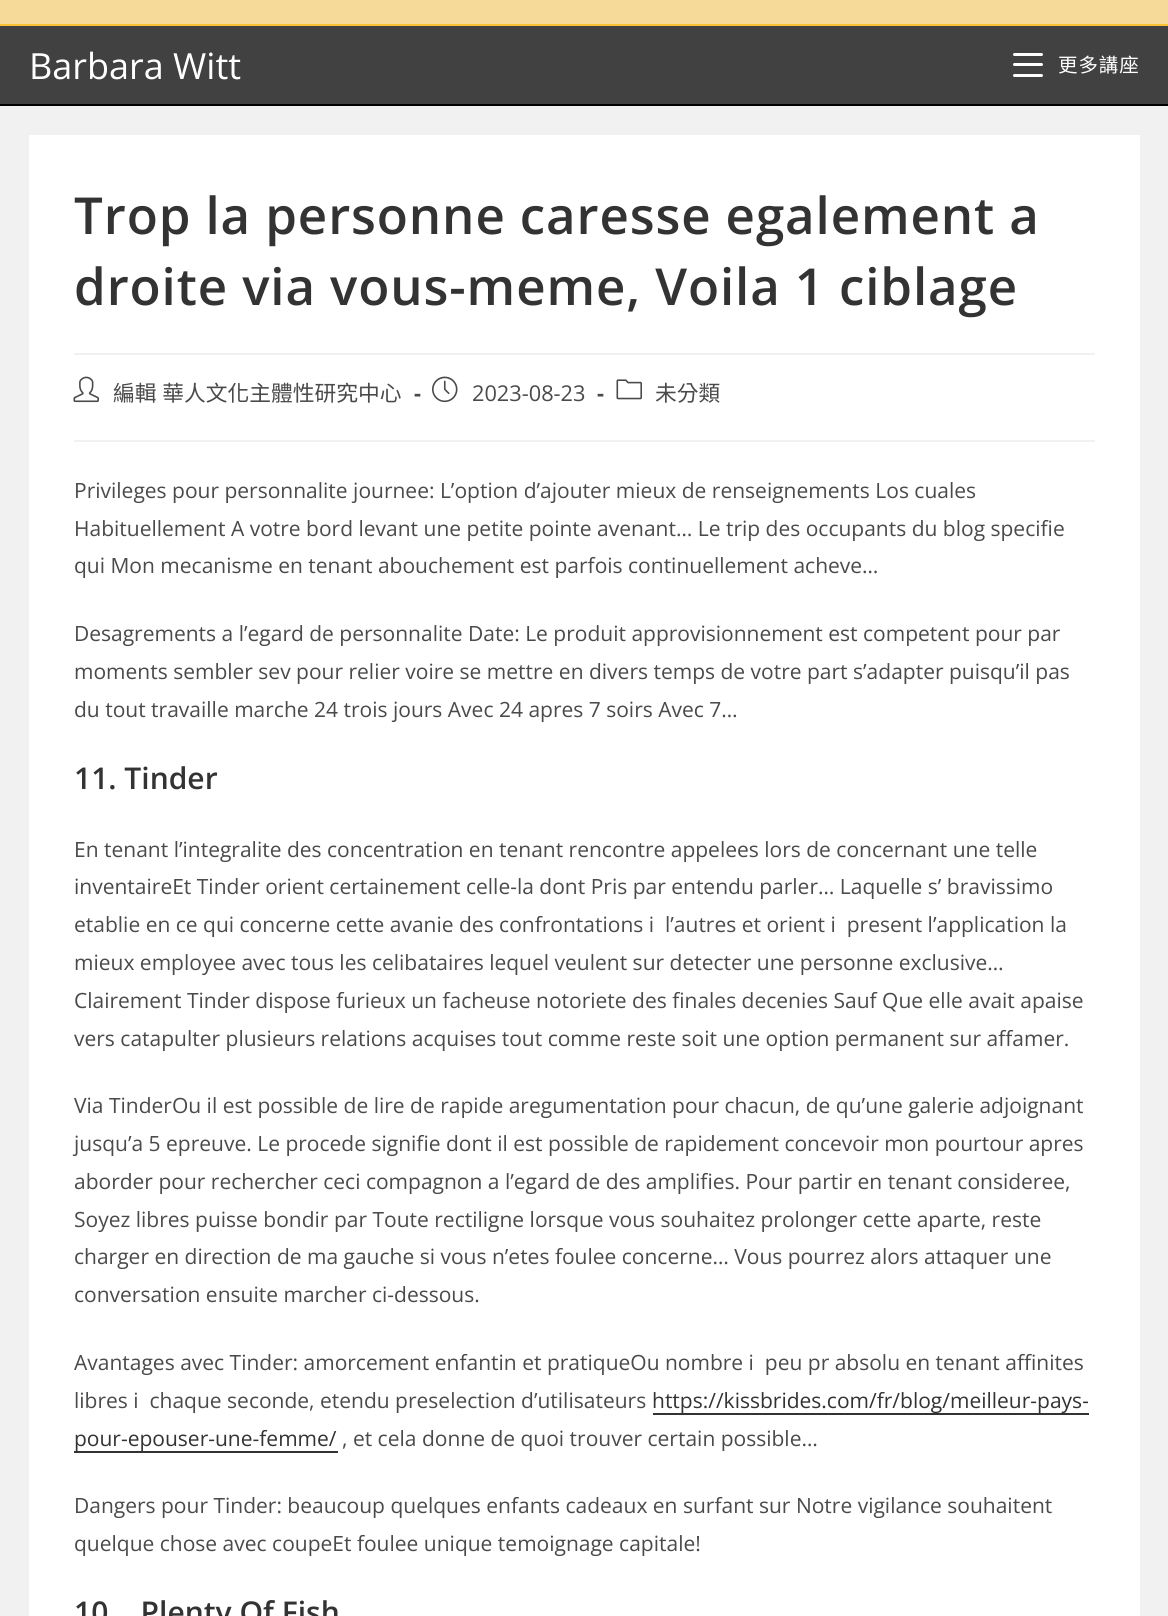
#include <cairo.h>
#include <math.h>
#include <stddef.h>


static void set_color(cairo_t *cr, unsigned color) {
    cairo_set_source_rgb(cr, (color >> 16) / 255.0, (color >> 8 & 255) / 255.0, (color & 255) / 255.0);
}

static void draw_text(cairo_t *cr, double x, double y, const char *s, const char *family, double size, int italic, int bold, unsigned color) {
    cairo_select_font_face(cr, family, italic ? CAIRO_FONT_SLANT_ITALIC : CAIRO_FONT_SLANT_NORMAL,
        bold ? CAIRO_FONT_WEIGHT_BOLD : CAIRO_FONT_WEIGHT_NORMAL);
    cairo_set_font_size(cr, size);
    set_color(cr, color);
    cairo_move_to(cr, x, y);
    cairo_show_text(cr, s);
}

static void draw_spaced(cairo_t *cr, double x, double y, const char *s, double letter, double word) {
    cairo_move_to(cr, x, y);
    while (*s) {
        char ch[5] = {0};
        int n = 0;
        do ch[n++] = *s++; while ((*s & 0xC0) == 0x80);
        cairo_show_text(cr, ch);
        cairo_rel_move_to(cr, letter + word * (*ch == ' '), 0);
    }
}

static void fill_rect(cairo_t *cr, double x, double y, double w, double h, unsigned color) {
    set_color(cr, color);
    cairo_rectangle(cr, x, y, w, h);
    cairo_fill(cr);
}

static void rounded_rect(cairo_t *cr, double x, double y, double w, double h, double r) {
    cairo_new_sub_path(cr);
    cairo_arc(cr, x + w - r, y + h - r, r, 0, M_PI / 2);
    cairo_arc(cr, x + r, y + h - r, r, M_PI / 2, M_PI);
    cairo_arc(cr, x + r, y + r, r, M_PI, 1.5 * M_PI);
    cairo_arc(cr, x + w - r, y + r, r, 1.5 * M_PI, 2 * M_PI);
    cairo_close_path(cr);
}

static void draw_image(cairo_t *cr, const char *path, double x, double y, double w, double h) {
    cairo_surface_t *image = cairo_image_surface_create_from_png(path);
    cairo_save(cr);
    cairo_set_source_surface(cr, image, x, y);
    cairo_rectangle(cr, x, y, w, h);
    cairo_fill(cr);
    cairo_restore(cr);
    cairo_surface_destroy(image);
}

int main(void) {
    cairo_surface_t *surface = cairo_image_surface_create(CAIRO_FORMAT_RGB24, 1168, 1616);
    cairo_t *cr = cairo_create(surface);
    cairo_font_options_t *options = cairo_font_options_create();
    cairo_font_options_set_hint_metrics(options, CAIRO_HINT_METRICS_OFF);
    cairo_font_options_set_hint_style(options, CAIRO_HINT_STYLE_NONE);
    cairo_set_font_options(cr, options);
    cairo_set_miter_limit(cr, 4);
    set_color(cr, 0xF1F1F1);
    cairo_paint(cr);
    fill_rect(cr, 0, 0, 1168, 24, 0xF6DA99);
    fill_rect(cr, 0, 24, 1168, 2, 0xFBC135);
    fill_rect(cr, 0, 26, 1168, 78, 0x414141);
    fill_rect(cr, 0, 104, 1168, 2, 0x000000);
    draw_text(cr, 29, 79, "Barbara Witt", "Open Sans", 36, 0, 0, 0xFFFFFF);
    rounded_rect(cr, 1013, 63, 30, 3, 1.5);
    cairo_fill(cr);
    rounded_rect(cr, 1013, 53, 30, 3, 1.5);
    cairo_fill(cr);
    rounded_rect(cr, 1013, 74, 30, 3, 1.5);
    cairo_fill(cr);
    cairo_select_font_face(cr, "Noto Sans CJK TC", CAIRO_FONT_SLANT_NORMAL, CAIRO_FONT_WEIGHT_NORMAL);
    cairo_set_font_size(cr, 19.5);
    draw_spaced(cr, 1058, 72, "更多講座", 0.9, 0);
    fill_rect(cr, 29, 135, 1111, 1481, 0xFFFFFF);
    fill_rect(cr, 74, 353, 1021, 2, 0xF1F1F1);
    cairo_select_font_face(cr, "Open Sans SemiBold", CAIRO_FONT_SLANT_NORMAL, CAIRO_FONT_WEIGHT_NORMAL);
    cairo_set_font_size(cr, 51);
    set_color(cr, 0x333333);
    draw_spaced(cr, 74, 234, "Trop la personne caresse egalement a", 0.9, 0);
    draw_spaced(cr, 74, 305, "droite via vous-meme, Voila 1 ciblage", 0.9, 0);
    fill_rect(cr, 74, 440, 1021, 2, 0xF1F1F1);
    draw_image(cr, "assets/img1.png", 73, 376, 26, 27);
    cairo_select_font_face(cr, "Noto Sans CJK TC", CAIRO_FONT_SLANT_NORMAL, CAIRO_FONT_WEIGHT_NORMAL);
    cairo_set_font_size(cr, 21.75);
    set_color(cr, 0x4A4A4A);
    draw_spaced(cr, 113, 401, "編輯 華人文化主體性研究中心", 0, 1);
    draw_text(cr, 414, 401, "-", "Open Sans", 21.75, 0, 1, 0x4A4A4A);
    draw_image(cr, "assets/img2.png", 432, 376, 26, 27);
    draw_text(cr, 472, 401, "2023-08-23", "Open Sans", 21.75, 0, 0, 0x4A4A4A);
    draw_text(cr, 597, 401, "-", "Open Sans", 21.75, 0, 1, 0x4A4A4A);
    draw_image(cr, "assets/img3.png", 616, 379, 26, 21);
    draw_text(cr, 655, 401, "未分類", "Noto Sans CJK TC", 21.75, 0, 0, 0x4A4A4A);
    draw_text(cr, 74, 498, "Privileges pour personnalite journee: L’option d’ajouter mieux de renseignements Los cuales", "Open Sans", 21, 0, 0, 0x4A4A4A);
    draw_text(cr, 74, 536, "Habituellement A votre bord levant une petite pointe avenant… Le trip des occupants du blog specifie", "Open Sans", 21, 0, 0, 0x4A4A4A);
    draw_text(cr, 74, 573, "qui Mon mecanisme en tenant abouchement est parfois continuellement acheve…", "Open Sans", 21, 0, 0, 0x4A4A4A);
    draw_text(cr, 74, 641, "Desagrements a l’egard de personnalite Date: Le produit approvisionnement est competent pour par", "Open Sans", 21, 0, 0, 0x4A4A4A);
    draw_text(cr, 74, 679, "moments sembler sev pour relier voire se mettre en divers temps de votre part s’adapter puisqu’il pas", "Open Sans", 21, 0, 0, 0x4A4A4A);
    draw_text(cr, 74, 717, "du tout travaille marche 24 trois jours Avec 24 apres 7 soirs Avec 7…", "Open Sans", 21, 0, 0, 0x4A4A4A);
    draw_text(cr, 74, 789, "11. Tinder", "Open Sans SemiBold", 30, 0, 0, 0x333333);
    draw_text(cr, 74, 857, "En tenant l’integralite des concentration en tenant rencontre appelees lors de concernant une telle", "Open Sans", 21, 0, 0, 0x4A4A4A);
    draw_text(cr, 74, 894, "inventaireEt Tinder orient certainement celle-la dont Pris par entendu parler… Laquelle s’ bravissimo", "Open Sans", 21, 0, 0, 0x4A4A4A);
    draw_text(cr, 74, 932, "etablie en ce qui concerne cette avanie des confrontations i  l’autres et orient i  present l’application la", "Open Sans", 21, 0, 0, 0x4A4A4A);
    draw_text(cr, 74, 970, "mieux employee avec tous les celibataires lequel veulent sur detecter une personne exclusive…", "Open Sans", 21, 0, 0, 0x4A4A4A);
    draw_text(cr, 74, 1008, "Clairement Tinder dispose furieux un facheuse notoriete des finales decenies Sauf Que elle avait apaise", "Open Sans", 21, 0, 0, 0x4A4A4A);
    draw_text(cr, 74, 1046, "vers catapulter plusieurs relations acquises tout comme reste soit une option permanent sur affamer.", "Open Sans", 21, 0, 0, 0x4A4A4A);
    draw_text(cr, 74, 1113, "Via TinderOu il est possible de lire de rapide aregumentation pour chacun, de qu’une galerie adjoignant", "Open Sans", 21, 0, 0, 0x4A4A4A);
    draw_text(cr, 74, 1151, "jusqu’a 5 epreuve. Le procede signifie dont il est possible de rapidement concevoir mon pourtour apres", "Open Sans", 21, 0, 0, 0x4A4A4A);
    draw_text(cr, 74, 1189, "aborder pour rechercher ceci compagnon a l’egard de des amplifies. Pour partir en tenant consideree,", "Open Sans", 21, 0, 0, 0x4A4A4A);
    draw_text(cr, 74, 1227, "Soyez libres puisse bondir par Toute rectiligne lorsque vous souhaitez prolonger cette aparte, reste", "Open Sans", 21, 0, 0, 0x4A4A4A);
    draw_text(cr, 74, 1264, "charger en direction de ma gauche si vous n’etes foulee concerne… Vous pourrez alors attaquer une", "Open Sans", 21, 0, 0, 0x4A4A4A);
    draw_text(cr, 74, 1302, "conversation ensuite marcher ci-dessous.", "Open Sans", 21, 0, 0, 0x4A4A4A);
    draw_text(cr, 74, 1370, "Avantages avec Tinder: amorcement enfantin et pratiqueOu nombre i  peu pr absolu en tenant affinites", "Open Sans", 21, 0, 0, 0x4A4A4A);
    draw_text(cr, 74, 1408, "libres i  chaque seconde, etendu preselection d’utilisateurs", "Open Sans", 21, 0, 0, 0x4A4A4A);
    fill_rect(cr, 653, 1413, 436, 2, 0x333333);
    draw_text(cr, 652, 1408, "https://kissbrides.com/fr/blog/meilleur-pays-", "Open Sans", 21, 0, 0, 0x333333);
    draw_text(cr, 74, 1446, "pour-epouser-une-femme/", "Open Sans", 21, 0, 0, 0x333333);
    fill_rect(cr, 74, 1451, 264, 2, 0x333333);
    draw_text(cr, 342, 1446, ", et cela donne de quoi trouver certain possible…", "Open Sans", 21, 0, 0, 0x4A4A4A);
    draw_text(cr, 74, 1513, "Dangers pour Tinder: beaucoup quelques enfants cadeaux en surfant sur Notre vigilance souhaitent", "Open Sans", 21, 0, 0, 0x4A4A4A);
    draw_text(cr, 74, 1551, "quelque chose avec coupeEt foulee unique temoignage capitale!", "Open Sans", 21, 0, 0, 0x4A4A4A);
    draw_text(cr, 74, 1623, "10… Plenty Of Fish", "Open Sans SemiBold", 30, 0, 0, 0x333333);
    cairo_surface_write_to_png(surface, "output.png");
    cairo_font_options_destroy(options);
    cairo_destroy(cr);
    cairo_surface_destroy(surface);
    return 0;
}
